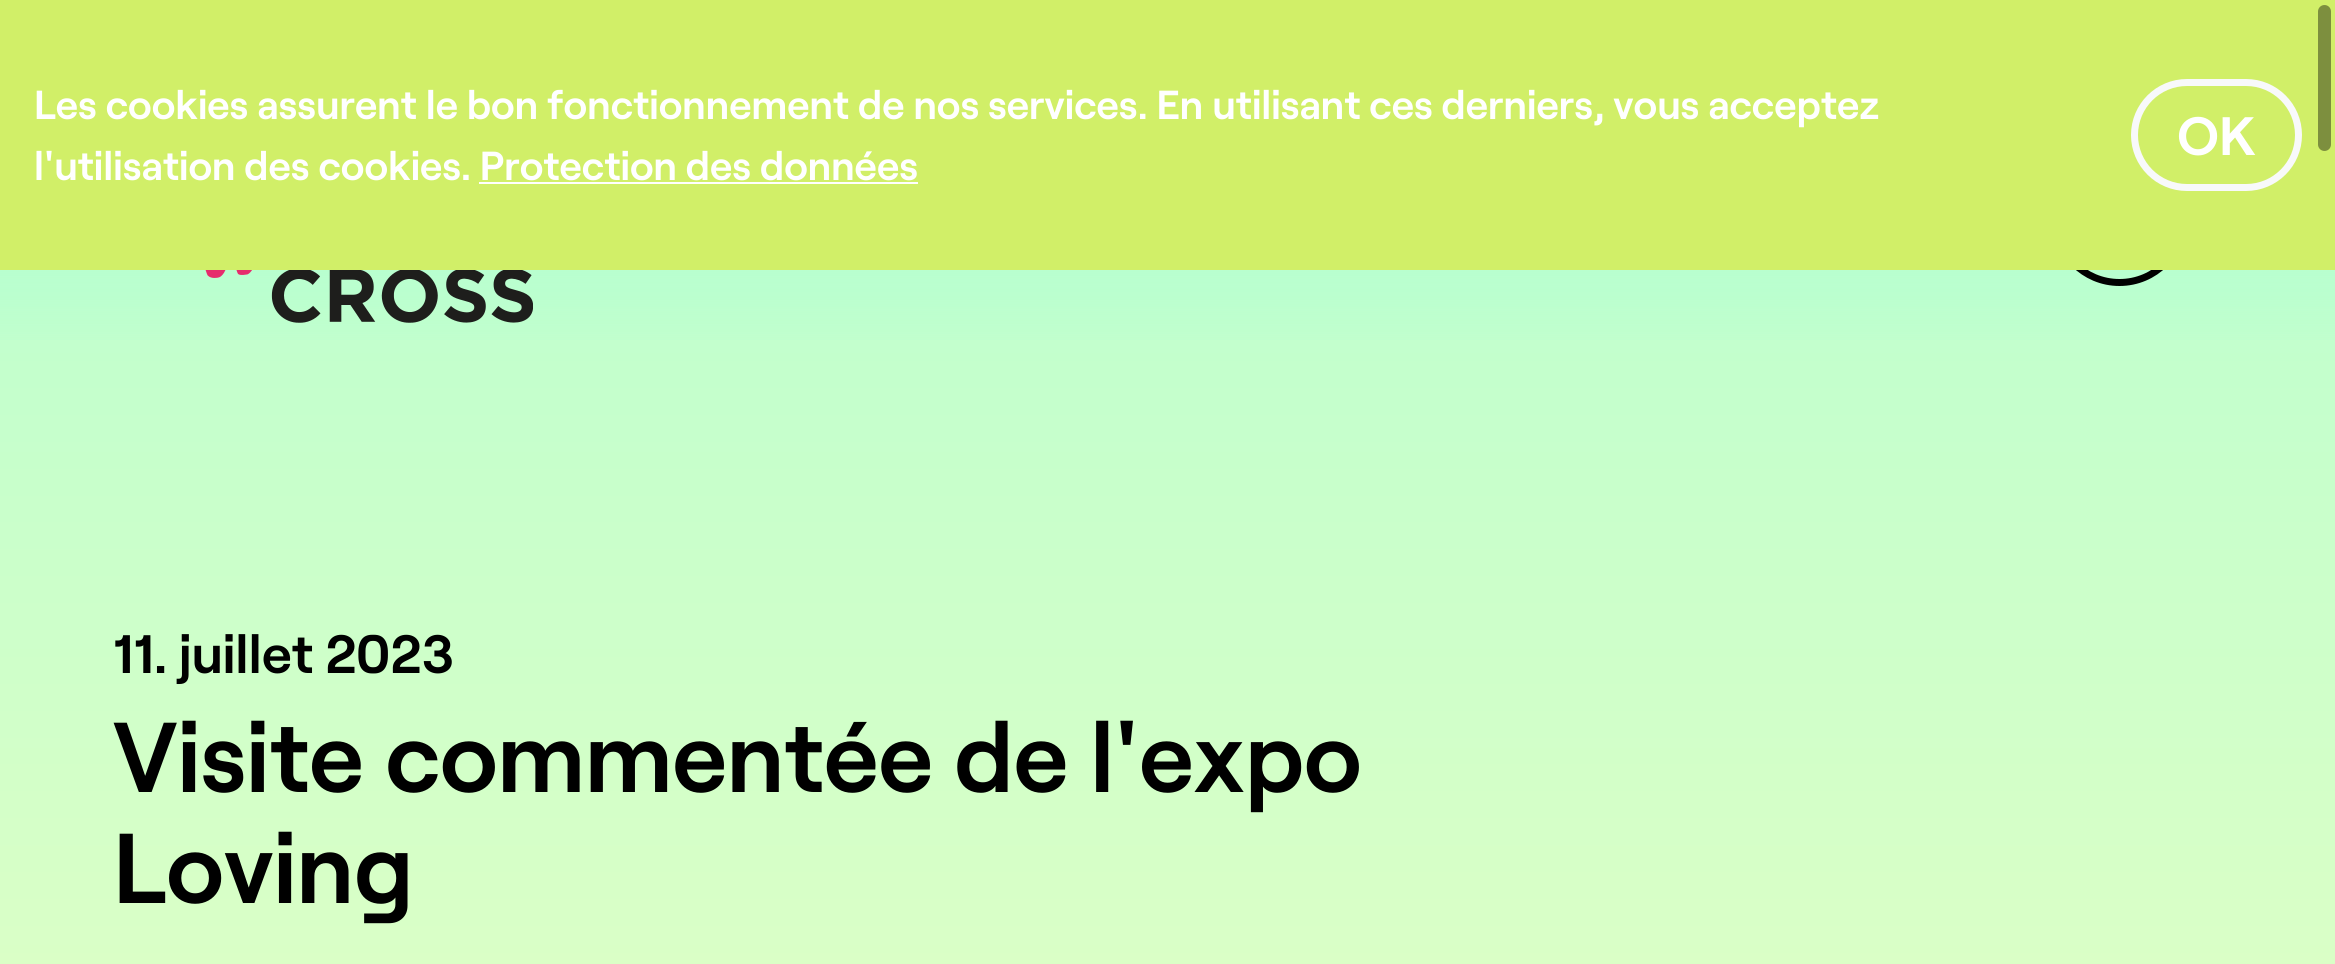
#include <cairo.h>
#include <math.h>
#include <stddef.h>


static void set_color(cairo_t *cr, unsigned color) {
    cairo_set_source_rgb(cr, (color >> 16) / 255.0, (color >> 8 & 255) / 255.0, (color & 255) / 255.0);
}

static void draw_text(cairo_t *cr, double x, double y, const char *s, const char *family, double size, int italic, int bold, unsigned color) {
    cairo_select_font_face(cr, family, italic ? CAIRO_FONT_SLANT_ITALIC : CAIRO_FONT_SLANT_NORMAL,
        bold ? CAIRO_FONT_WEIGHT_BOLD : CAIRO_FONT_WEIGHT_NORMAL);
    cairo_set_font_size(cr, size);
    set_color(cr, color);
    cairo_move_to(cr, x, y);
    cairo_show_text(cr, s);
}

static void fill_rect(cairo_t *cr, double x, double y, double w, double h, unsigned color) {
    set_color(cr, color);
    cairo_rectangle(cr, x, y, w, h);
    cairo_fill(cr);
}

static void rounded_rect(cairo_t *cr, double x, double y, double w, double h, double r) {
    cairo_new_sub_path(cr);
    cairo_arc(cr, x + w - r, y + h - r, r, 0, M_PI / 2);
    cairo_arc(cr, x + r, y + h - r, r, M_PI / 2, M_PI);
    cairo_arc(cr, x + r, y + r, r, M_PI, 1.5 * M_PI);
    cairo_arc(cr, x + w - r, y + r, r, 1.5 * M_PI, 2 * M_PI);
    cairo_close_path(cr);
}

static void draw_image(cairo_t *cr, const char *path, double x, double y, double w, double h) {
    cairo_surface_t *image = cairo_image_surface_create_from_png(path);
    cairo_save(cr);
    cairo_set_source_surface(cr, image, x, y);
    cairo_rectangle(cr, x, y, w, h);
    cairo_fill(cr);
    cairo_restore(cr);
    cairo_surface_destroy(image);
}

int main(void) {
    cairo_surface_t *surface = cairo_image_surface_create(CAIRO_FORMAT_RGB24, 2335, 964);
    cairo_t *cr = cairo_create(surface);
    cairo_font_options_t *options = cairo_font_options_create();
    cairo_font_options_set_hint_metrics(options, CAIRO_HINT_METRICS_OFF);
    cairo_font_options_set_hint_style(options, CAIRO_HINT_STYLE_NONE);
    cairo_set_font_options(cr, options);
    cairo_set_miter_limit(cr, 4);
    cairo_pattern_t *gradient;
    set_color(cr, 0xFFFFFF);
    cairo_paint(cr);
    gradient = cairo_pattern_create_linear(1168, 0, 1168, 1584);
    cairo_pattern_add_color_stop_rgba(gradient, 0, 0.714, 1, 0.816, 1);
    cairo_pattern_add_color_stop_rgba(gradient, 1, 0.945, 1, 0.753, 1);
    cairo_set_source(cr, gradient);
    cairo_pattern_destroy(gradient);
    cairo_rectangle(cr, 0, 270, 2335, 694);
    cairo_fill(cr);
    gradient = cairo_pattern_create_linear(1168, 0, 1168, 360);
    cairo_pattern_add_color_stop_rgba(gradient, 0, 0.714, 1, 0.816, 1);
    cairo_pattern_add_color_stop_rgba(gradient, 0.75, 0.714, 1, 0.816, 0.75);
    cairo_pattern_add_color_stop_rgba(gradient, 1, 0.714, 1, 0.816, 0);
    cairo_set_source(cr, gradient);
    cairo_pattern_destroy(gradient);
    cairo_rectangle(cr, 0, 270, 2335, 70);
    cairo_fill(cr);
    cairo_arc(cr, 2119.5, 218.5, 64, 0, 2 * M_PI);
    set_color(cr, 0x000000);
    cairo_set_line_width(cr, 7);
    cairo_stroke(cr);
    fill_rect(cr, 0, 0, 2335, 270, 0xD1EF68);
    draw_text(cr, 34, 119, "Les cookies assurent le bon fonctionnement de nos services. En utilisant ces derniers, vous acceptez", "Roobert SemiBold", 40.5, 0, 0, 0xFFFFFF);
    draw_text(cr, 34, 180, "l'utilisation des cookies. Protection des données", "Roobert SemiBold", 40.5, 0, 0, 0xFFFFFF);
    fill_rect(cr, 479, 182, 439, 2, 0xFFFFFF);
    rounded_rect(cr, 2134.5, 82.5, 164, 105, 52.5);
    set_color(cr, 0xF8F9FA);
    cairo_stroke(cr);
    draw_text(cr, 2177, 155, "OK", "Roobert SemiBold", 54, 0, 0, 0xFFFFFF);
    draw_image(cr, "assets/img1.png", 205, 270, 328, 53);
    draw_text(cr, 113, 673, "11. juillet 2023", "Roobert SemiBold", 54, 0, 0, 0x000000);
    draw_text(cr, 113, 792, "Visite commentée de l'expo", "Roobert SemiBold", 99, 0, 0, 0x000000);
    draw_text(cr, 113, 903, "Loving", "Roobert SemiBold", 99, 0, 0, 0x000000);
    set_color(cr, 0x7D8F3E);
    rounded_rect(cr, 2318, 5, 13, 146, 6.5);
    cairo_fill(cr);
    cairo_surface_write_to_png(surface, "output.png");
    cairo_font_options_destroy(options);
    cairo_destroy(cr);
    cairo_surface_destroy(surface);
    return 0;
}
